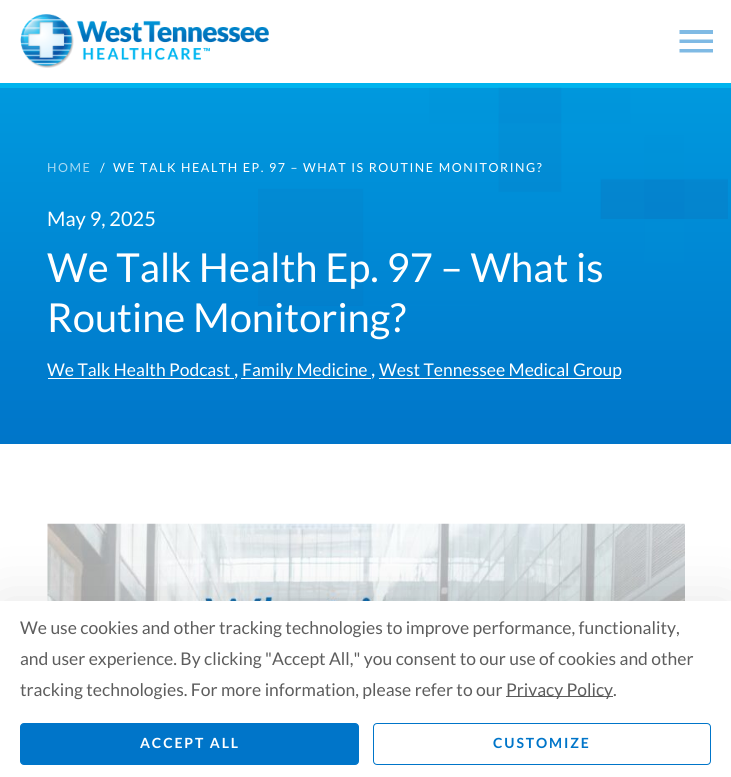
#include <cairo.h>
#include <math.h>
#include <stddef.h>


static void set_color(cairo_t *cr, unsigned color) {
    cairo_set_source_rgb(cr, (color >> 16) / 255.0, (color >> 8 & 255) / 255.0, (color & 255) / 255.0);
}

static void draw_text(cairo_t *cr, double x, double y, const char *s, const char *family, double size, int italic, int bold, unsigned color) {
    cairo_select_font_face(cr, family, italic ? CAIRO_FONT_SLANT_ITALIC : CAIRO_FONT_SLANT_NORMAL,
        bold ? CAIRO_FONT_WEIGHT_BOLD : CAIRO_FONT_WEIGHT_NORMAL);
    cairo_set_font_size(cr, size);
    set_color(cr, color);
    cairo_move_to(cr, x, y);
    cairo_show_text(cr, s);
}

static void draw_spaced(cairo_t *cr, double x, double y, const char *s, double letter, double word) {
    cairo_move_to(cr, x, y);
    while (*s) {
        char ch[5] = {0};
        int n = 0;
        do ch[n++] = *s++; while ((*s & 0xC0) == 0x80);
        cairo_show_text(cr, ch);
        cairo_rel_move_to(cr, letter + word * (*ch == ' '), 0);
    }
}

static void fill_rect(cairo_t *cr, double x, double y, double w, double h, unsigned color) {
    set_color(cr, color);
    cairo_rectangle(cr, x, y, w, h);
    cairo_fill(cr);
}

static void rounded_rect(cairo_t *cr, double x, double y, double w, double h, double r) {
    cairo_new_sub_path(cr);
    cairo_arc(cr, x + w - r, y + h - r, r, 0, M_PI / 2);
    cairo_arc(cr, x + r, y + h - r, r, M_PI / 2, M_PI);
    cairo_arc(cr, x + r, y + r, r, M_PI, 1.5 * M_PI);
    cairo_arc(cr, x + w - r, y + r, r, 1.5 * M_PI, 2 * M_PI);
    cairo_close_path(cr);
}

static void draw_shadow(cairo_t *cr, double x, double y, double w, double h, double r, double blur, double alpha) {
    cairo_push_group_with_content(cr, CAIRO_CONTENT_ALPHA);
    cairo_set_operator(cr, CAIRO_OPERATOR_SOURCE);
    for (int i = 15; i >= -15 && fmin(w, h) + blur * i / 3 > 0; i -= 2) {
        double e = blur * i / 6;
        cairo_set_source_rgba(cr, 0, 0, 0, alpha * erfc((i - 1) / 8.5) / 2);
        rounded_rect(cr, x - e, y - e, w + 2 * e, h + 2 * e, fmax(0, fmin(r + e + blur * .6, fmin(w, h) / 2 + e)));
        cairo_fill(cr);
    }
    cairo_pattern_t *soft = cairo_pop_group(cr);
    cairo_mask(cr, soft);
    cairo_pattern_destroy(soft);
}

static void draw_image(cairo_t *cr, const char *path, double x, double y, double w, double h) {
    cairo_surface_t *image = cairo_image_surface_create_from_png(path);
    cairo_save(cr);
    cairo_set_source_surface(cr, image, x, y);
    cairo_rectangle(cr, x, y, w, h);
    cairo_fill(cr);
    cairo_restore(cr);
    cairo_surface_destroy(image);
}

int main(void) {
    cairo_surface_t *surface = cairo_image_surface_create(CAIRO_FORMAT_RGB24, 731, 777);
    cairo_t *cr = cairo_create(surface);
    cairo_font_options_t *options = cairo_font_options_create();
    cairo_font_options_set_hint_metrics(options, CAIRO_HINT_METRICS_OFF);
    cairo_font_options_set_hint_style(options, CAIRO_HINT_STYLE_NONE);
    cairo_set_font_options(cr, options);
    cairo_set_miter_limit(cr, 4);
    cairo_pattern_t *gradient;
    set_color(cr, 0xFFFFFF);
    cairo_paint(cr);
    fill_rect(cr, 0, 83, 731, 5, 0x00B4EE);
    draw_image(cr, "assets/img1.png", 20, 14, 249, 54);
    set_color(cr, 0x7FBAE4);
    cairo_set_fill_rule(cr, CAIRO_FILL_RULE_EVEN_ODD);
    cairo_new_path(cr);
    cairo_move_to(cr, 679.5, 52.5);
    cairo_line_to(cr, 713, 52.5);
    cairo_line_to(cr, 713, 49);
    cairo_line_to(cr, 679.5, 49);
    cairo_close_path(cr);
    cairo_move_to(cr, 679.5, 43);
    cairo_line_to(cr, 713, 43);
    cairo_line_to(cr, 713, 39.5);
    cairo_line_to(cr, 679.5, 39.5);
    cairo_close_path(cr);
    cairo_move_to(cr, 679.5, 30);
    cairo_line_to(cr, 679.5, 34);
    cairo_line_to(cr, 713, 34);
    cairo_line_to(cr, 713, 30);
    cairo_close_path(cr);
    cairo_fill(cr);
    gradient = cairo_pattern_create_linear(366, -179, 366, 444);
    cairo_pattern_add_color_stop_rgba(gradient, 0, 0, 0.706, 0.933, 1);
    cairo_pattern_add_color_stop_rgba(gradient, 1, 0, 0.459, 0.788, 1);
    cairo_set_source(cr, gradient);
    cairo_pattern_destroy(gradient);
    cairo_rectangle(cr, 0, 88, 731, 356);
    cairo_fill(cr);
    draw_image(cr, "assets/img2.png", 258, 87, 470, 219);
    cairo_select_font_face(cr, "Lato", CAIRO_FONT_SLANT_NORMAL, CAIRO_FONT_WEIGHT_NORMAL);
    cairo_set_font_size(cr, 12.5);
    set_color(cr, 0xA6D8F2);
    draw_spaced(cr, 47, 172, "HOME", 1.55, 0);
    draw_text(cr, 100, 172, "/", "Lato", 12.5, 0, 0, 0xFFFFFF);
    draw_spaced(cr, 113, 172, "WE TALK HEALTH EP. 97 – WHAT IS ROUTINE MONITORING?", 1.55, 0);
    draw_text(cr, 47, 226, "May 9, 2025", "Lato", 20, 0, 0, 0xFFFFFF);
    draw_text(cr, 47, 282, "We Talk Health Ep. 97 – What is", "Lato", 39.9, 0, 0, 0xFFFFFF);
    draw_text(cr, 47, 332, "Routine Monitoring?", "Lato", 39.9, 0, 0, 0xFFFFFF);
    draw_text(cr, 47, 376, "We Talk Health Podcast", "Lato", 17.5, 0, 0, 0xFFFFFF);
    fill_rect(cr, 48, 378, 186, 1, 0xFFFFFF);
    draw_text(cr, 234, 376, ",", "Lato", 20, 0, 0, 0xFFFFFF);
    fill_rect(cr, 241, 378, 130, 1, 0xFFFFFF);
    draw_text(cr, 242, 376, "Family Medicine", "Lato", 17.5, 0, 0, 0xFFFFFF);
    draw_text(cr, 371, 376, ",", "Lato", 20, 0, 0, 0xFFFFFF);
    fill_rect(cr, 379, 378, 242, 1, 0xFFFFFF);
    draw_text(cr, 379, 376, "West Tennessee Medical Group", "Lato", 17.5, 0, 0, 0xFFFFFF);
    draw_image(cr, "assets/img3.png", 47, 523, 638, 78);
    set_color(cr, 0x000000);
    draw_shadow(cr, 0, 601, 731, 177, 0, 30, 0.1);
    fill_rect(cr, 0, 601, 731, 176, 0xFFFFFF);
    draw_text(cr, 20, 634, "We use cookies and other tracking technologies to improve performance, functionality,", "Lato", 17.5, 0, 0, 0x5D5D5D);
    draw_text(cr, 20, 665, "and user experience. By clicking \"Accept All,\" you consent to our use of cookies and other", "Lato", 17.5, 0, 0, 0x5D5D5D);
    draw_text(cr, 20, 696, "tracking technologies. For more information, please refer to our", "Lato", 17.5, 0, 0, 0x5D5D5D);
    fill_rect(cr, 506, 696, 107, 1, 0x5D5D5D);
    draw_text(cr, 506, 696, "Privacy Policy.", "Lato", 17.5, 0, 0, 0x5D5D5D);
    set_color(cr, 0x0075C9);
    rounded_rect(cr, 20.5, 723.5, 338, 41, 3.5);
    cairo_fill_preserve(cr);
    cairo_set_line_width(cr, 1);
    cairo_stroke(cr);
    cairo_select_font_face(cr, "Lato", CAIRO_FONT_SLANT_NORMAL, CAIRO_FONT_WEIGHT_BOLD);
    cairo_set_font_size(cr, 14);
    set_color(cr, 0xFFFFFF);
    draw_spaced(cr, 140, 748, "ACCEPT ALL", 1.9, 0);
    rounded_rect(cr, 373.5, 723.5, 337, 41, 3.5);
    set_color(cr, 0x0075C9);
    cairo_stroke(cr);
    draw_spaced(cr, 493, 748, "CUSTOMIZE", 1.9, 0);
    cairo_surface_write_to_png(surface, "output.png");
    cairo_font_options_destroy(options);
    cairo_destroy(cr);
    cairo_surface_destroy(surface);
    return 0;
}
